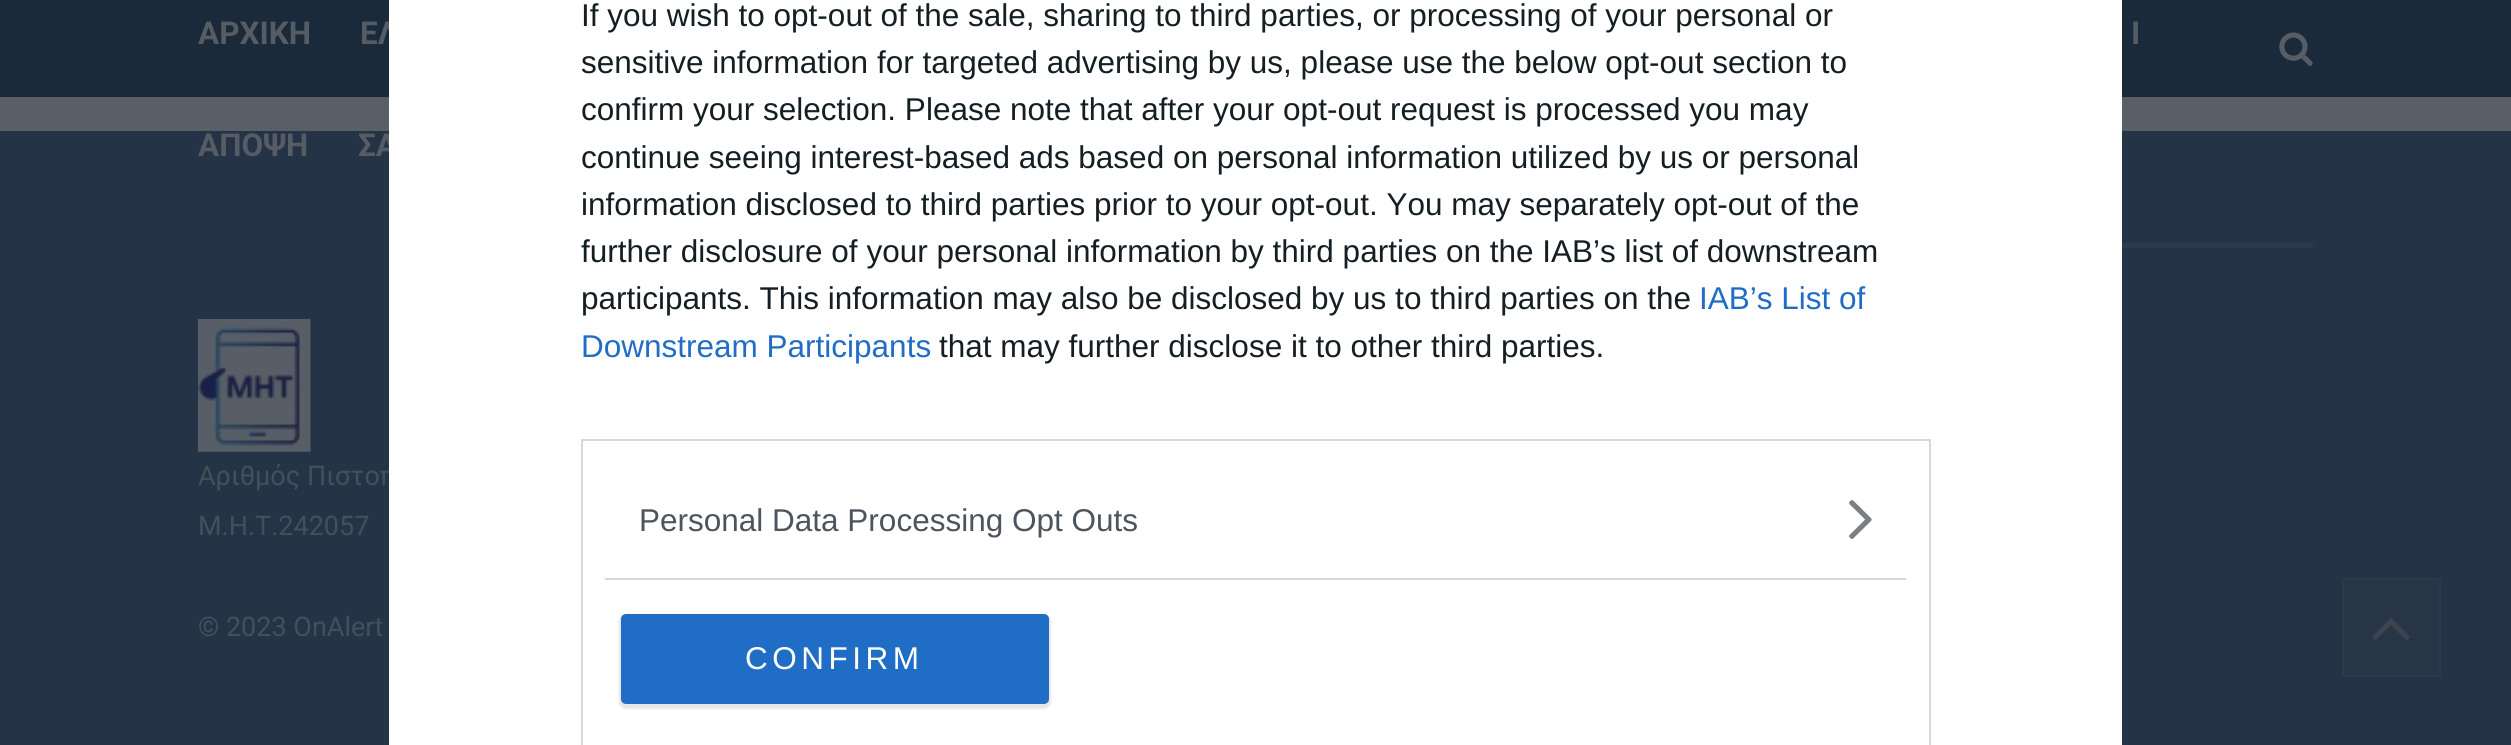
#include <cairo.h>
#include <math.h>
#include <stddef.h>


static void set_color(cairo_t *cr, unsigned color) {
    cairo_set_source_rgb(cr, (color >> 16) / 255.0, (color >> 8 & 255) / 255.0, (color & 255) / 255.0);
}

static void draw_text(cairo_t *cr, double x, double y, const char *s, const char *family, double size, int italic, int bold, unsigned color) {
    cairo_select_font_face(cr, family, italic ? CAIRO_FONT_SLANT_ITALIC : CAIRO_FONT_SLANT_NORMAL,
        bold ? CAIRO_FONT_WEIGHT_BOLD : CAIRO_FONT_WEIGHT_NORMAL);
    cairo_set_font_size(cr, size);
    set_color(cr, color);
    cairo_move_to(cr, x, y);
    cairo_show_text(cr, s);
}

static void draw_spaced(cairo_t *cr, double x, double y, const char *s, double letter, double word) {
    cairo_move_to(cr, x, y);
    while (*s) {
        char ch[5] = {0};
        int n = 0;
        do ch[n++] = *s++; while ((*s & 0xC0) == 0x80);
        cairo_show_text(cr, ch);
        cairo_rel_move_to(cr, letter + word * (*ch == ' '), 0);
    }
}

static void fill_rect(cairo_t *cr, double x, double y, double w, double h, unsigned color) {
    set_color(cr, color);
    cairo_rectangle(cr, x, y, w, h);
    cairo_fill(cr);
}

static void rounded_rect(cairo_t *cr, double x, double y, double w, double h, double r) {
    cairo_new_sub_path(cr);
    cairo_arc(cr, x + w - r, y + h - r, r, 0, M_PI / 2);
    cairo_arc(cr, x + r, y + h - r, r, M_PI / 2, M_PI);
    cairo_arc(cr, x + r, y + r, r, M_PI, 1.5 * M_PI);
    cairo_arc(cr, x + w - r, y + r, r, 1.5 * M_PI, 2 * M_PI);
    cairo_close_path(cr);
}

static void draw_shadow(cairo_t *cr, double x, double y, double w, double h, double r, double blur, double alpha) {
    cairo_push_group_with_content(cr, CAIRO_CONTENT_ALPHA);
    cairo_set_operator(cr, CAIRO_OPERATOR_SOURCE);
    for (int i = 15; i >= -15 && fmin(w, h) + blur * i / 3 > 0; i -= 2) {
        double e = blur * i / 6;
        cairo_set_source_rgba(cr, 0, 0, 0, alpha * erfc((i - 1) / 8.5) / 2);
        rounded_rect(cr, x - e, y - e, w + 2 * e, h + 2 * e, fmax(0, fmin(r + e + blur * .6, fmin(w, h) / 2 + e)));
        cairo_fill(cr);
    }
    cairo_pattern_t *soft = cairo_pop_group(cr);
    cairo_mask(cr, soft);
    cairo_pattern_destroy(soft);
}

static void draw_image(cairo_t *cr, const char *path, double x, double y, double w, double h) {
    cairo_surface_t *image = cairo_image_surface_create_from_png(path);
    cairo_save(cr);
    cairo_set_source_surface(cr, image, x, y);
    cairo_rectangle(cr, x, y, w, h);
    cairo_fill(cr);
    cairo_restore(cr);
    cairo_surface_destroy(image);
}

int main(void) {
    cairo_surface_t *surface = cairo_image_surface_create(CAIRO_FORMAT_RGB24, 2511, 745);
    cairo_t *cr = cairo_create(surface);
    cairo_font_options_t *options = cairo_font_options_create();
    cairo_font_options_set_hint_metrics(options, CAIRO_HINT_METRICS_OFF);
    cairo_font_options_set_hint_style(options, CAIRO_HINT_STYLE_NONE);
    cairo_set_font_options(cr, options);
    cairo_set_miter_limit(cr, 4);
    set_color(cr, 0x595F67);
    cairo_paint(cr);
    fill_rect(cr, 0, 0, 2511, 97, 0x1B2A3A);
    draw_text(cr, 360, 44, "ΕΛ", "Roboto", 31.5, 0, 1, 0x565C64);
    fill_rect(cr, 0, 131, 2511, 614, 0x243345);
    draw_text(cr, 358, 156, "ΣΑ", "Roboto", 31.5, 0, 1, 0x565C64);
    draw_text(cr, 198, 485, "Αριθμός Πιστοπ", "Roboto", 27, 0, 0, 0x454F5A);
    fill_rect(cr, 389, 0, 1733, 745, 0xFFFFFF);
    draw_text(cr, 581, 26, "If you wish to opt-out of the sale, sharing to third parties, or processing of your personal or", "Liberation Sans", 31.5, 0, 0, 0x141E23);
    draw_text(cr, 581, 73, "sensitive information for targeted advertising by us, please use the below opt-out section to", "Liberation Sans", 31.5, 0, 0, 0x141E23);
    draw_text(cr, 581, 120, "confirm your selection. Please note that after your opt-out request is processed you may", "Liberation Sans", 31.5, 0, 0, 0x141E23);
    draw_text(cr, 581, 168, "continue seeing interest-based ads based on personal information utilized by us or personal", "Liberation Sans", 31.5, 0, 0, 0x141E23);
    draw_text(cr, 581, 215, "information disclosed to third parties prior to your opt-out. You may separately opt-out of the", "Liberation Sans", 31.5, 0, 0, 0x141E23);
    draw_text(cr, 581, 262, "further disclosure of your personal information by third parties on the IAB’s list of downstream", "Liberation Sans", 31.5, 0, 0, 0x141E23);
    draw_text(cr, 581, 309, "participants. This information may also be disclosed by us to third parties on the", "Liberation Sans", 31.5, 0, 0, 0x141E23);
    draw_text(cr, 1699, 309, "IAB’s List of", "Liberation Sans", 31.5, 0, 0, 0x206DC5);
    draw_text(cr, 581, 357, "Downstream Participants", "Liberation Sans", 31.5, 0, 0, 0x206DC5);
    draw_text(cr, 939, 357, "that may further disclose it to other third parties.", "Liberation Sans", 31.5, 0, 0, 0x141E23);
    cairo_rectangle(cr, 582, 440, 1348, 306);
    set_color(cr, 0xD8D8D8);
    cairo_stroke(cr);
    fill_rect(cr, 605, 578, 1301, 2, 0xD8D8D8);
    draw_text(cr, 639, 531, "Personal Data Processing Opt Outs", "Liberation Sans", 31.5, 0, 0, 0x4D545D);
    draw_image(cr, "assets/img1.png", 1849, 500, 23, 39);
    set_color(cr, 0x000000);
    draw_shadow(cr, 619, 614, 432, 95, 7, 1, 0.1);
    set_color(cr, 0x206DC5);
    rounded_rect(cr, 621, 614, 428, 90, 5);
    cairo_fill(cr);
    set_color(cr, 0xFFFFFF);
    draw_spaced(cr, 745, 669, "CONFIRM", 4.5, 0);
    draw_text(cr, 198, 44, "ΑΡΧΙΚΗ", "Roboto", 31.5, 0, 1, 0x565C64);
    draw_text(cr, 2131, 44, "Ι", "Roboto", 31.5, 0, 1, 0x565C64);
    draw_text(cr, 198, 156, "ΑΠΟΨΗ", "Roboto", 31.5, 0, 1, 0x565C64);
    draw_image(cr, "assets/img2.png", 2279, 32, 34, 34);
    fill_rect(cr, 2122, 243, 191, 5, 0x2C394A);
    draw_image(cr, "assets/img3.png", 198, 319, 113, 133);
    draw_text(cr, 198, 535, "Μ.Η.Τ.242057", "Roboto", 27, 0, 0, 0x454F5A);
    draw_text(cr, 198, 636, "© 2023 OnAlert", "Roboto", 27, 0, 0, 0x454F5A);
    cairo_set_source_rgba(cr, 0.247, 0.278, 0.318, 0.15);
    cairo_rectangle(cr, 2340, 576, 104, 104);
    cairo_fill(cr);
    cairo_rectangle(cr, 2343, 579, 97, 97);
    set_color(cr, 0x2C394A);
    cairo_stroke(cr);
    cairo_rectangle(cr, 2341, 577, 102, 102);
    cairo_set_source_rgba(cr, 0.106, 0.137, 0.176, 0.11);
    cairo_stroke(cr);
    draw_image(cr, "assets/img4.png", 2372, 618, 38, 23);
    cairo_surface_write_to_png(surface, "output.png");
    cairo_font_options_destroy(options);
    cairo_destroy(cr);
    cairo_surface_destroy(surface);
    return 0;
}
